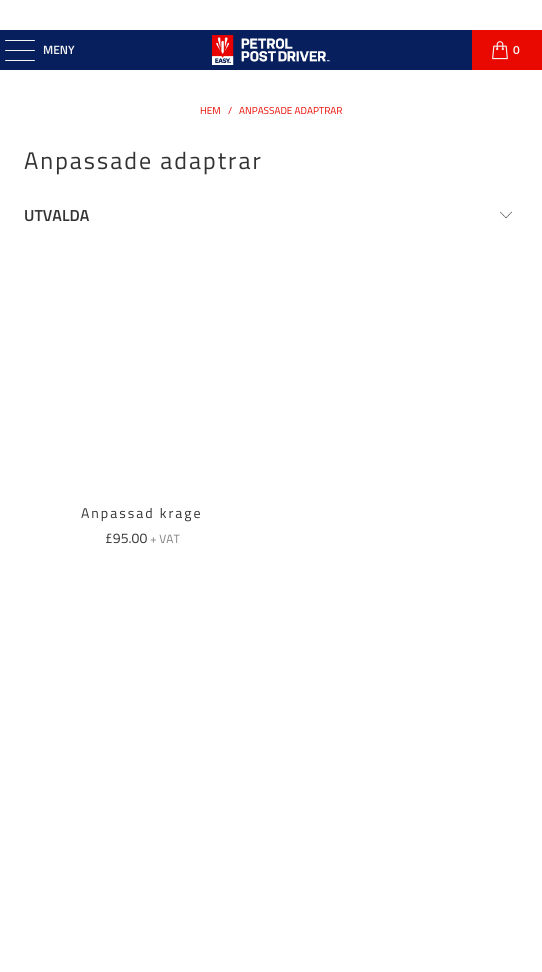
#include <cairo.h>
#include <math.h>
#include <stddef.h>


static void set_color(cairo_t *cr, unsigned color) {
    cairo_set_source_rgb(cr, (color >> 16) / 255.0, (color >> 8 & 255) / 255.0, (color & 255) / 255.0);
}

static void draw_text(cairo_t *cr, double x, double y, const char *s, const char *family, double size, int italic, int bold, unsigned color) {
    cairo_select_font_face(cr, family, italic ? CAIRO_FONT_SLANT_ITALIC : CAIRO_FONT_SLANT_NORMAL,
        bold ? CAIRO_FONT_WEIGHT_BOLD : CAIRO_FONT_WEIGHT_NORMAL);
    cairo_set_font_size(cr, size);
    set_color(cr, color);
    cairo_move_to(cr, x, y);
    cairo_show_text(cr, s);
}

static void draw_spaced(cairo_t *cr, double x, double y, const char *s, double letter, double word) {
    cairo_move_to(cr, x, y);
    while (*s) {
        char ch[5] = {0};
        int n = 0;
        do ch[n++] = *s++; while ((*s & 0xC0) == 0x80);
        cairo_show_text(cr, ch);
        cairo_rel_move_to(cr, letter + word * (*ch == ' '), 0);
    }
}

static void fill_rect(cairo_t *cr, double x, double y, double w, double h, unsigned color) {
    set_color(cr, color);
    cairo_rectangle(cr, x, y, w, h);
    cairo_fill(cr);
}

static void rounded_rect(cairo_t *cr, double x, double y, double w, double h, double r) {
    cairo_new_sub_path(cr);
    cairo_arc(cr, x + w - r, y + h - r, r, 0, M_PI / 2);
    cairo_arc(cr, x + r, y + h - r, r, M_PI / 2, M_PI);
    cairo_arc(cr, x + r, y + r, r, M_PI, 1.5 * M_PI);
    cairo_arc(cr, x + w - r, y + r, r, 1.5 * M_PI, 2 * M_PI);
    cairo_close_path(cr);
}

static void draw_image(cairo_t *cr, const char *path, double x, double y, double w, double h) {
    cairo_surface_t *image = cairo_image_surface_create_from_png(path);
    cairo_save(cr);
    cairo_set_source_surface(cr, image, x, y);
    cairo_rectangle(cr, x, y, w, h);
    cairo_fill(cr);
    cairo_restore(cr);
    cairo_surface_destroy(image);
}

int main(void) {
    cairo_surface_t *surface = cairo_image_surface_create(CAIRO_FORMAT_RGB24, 542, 972);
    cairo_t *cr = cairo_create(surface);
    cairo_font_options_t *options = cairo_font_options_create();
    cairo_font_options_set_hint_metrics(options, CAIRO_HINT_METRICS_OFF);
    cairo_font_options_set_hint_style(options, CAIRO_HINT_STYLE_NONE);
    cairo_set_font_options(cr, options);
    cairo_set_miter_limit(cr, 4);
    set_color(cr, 0xFFFFFF);
    cairo_paint(cr);
    fill_rect(cr, 0, 30, 472, 40, 0x071F5D);
    set_color(cr, 0xF4F4F4);
    rounded_rect(cr, 5, 40, 30, 1, 0.5);
    cairo_fill(cr);
    rounded_rect(cr, 5, 50, 30, 1, 0.5);
    cairo_fill(cr);
    rounded_rect(cr, 5, 60, 30, 1, 0.5);
    cairo_fill(cr);
    draw_text(cr, 43, 54, "MENY", "Titillium Web SemiBold", 12, 0, 0, 0xF4F4F4);
    draw_image(cr, "assets/img1.png", 212, 35, 118, 30);
    fill_rect(cr, 472, 30, 70, 40, 0xE90901);
    draw_image(cr, "assets/img2.png", 492, 41, 16, 19);
    draw_text(cr, 513, 54, "0", "Titillium Web SemiBold", 12, 0, 0, 0xF4F4F4);
    draw_text(cr, 200, 114, "HEM", "Titillium Web", 10, 0, 0, 0xE90901);
    draw_text(cr, 228, 114, "/", "Titillium Web", 10, 0, 0, 0xE90901);
    draw_text(cr, 239, 114, "ANPASSADE ADAPTRAR", "Titillium Web", 10, 0, 0, 0xE90901);
    cairo_set_font_size(cr, 24);
    set_color(cr, 0x333333);
    draw_spaced(cr, 24, 169, "Anpassade adaptrar", 2, 0);
    draw_image(cr, "assets/img3.png", 500, 211, 12, 8);
    draw_text(cr, 24, 221, "UTVALDA", "Titillium Web SemiBold", 16, 0, 0, 0x333333);
    cairo_select_font_face(cr, "Titillium Web", CAIRO_FONT_SLANT_NORMAL, CAIRO_FONT_WEIGHT_NORMAL);
    cairo_set_font_size(cr, 14);
    draw_spaced(cr, 81, 518, "Anpassad krage", 2, 0);
    draw_text(cr, 105, 543, "£95.00", "Titillium Web", 14, 0, 0, 0x333333);
    draw_text(cr, 150, 543, "+ VAT", "Titillium Web", 12, 0, 0, 0x808080);
    cairo_surface_write_to_png(surface, "output.png");
    cairo_font_options_destroy(options);
    cairo_destroy(cr);
    cairo_surface_destroy(surface);
    return 0;
}
